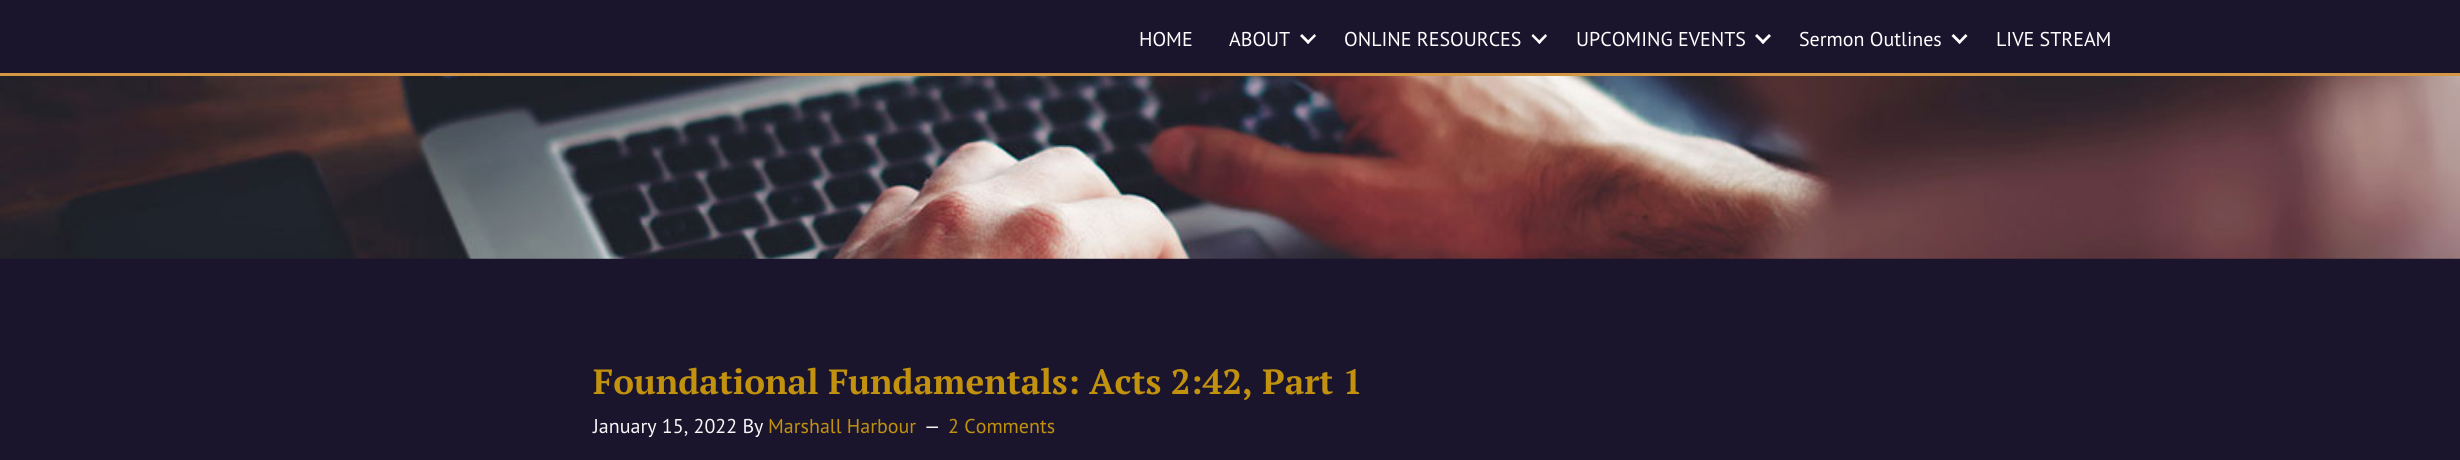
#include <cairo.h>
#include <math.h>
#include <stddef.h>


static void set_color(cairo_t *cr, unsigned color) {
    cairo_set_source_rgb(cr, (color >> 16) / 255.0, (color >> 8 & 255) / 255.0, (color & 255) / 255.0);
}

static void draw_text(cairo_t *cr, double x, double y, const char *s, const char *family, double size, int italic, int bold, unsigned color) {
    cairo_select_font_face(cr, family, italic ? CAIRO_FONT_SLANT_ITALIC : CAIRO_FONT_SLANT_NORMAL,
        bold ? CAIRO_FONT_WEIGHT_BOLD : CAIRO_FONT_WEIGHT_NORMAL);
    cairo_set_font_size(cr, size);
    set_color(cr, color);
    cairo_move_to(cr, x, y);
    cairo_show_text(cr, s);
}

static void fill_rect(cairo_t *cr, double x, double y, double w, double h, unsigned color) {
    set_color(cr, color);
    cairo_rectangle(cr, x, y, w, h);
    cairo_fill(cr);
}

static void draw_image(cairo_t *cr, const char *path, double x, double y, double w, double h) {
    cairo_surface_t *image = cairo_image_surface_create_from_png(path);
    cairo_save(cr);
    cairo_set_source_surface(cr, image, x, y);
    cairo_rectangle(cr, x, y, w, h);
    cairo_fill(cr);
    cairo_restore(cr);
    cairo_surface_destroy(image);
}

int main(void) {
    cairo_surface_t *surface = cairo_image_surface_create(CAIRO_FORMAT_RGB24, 2460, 460);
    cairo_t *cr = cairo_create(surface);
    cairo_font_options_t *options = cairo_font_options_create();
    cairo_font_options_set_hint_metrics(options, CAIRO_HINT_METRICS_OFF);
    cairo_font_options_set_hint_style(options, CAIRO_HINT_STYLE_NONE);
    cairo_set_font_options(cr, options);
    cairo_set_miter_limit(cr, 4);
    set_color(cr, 0x1A152D);
    cairo_paint(cr);
    fill_rect(cr, 0, 73, 2460, 3, 0xD69744);
    draw_text(cr, 1139, 46, "HOME", "PT Sans", 20, 0, 0, 0xFFFFFF);
    draw_text(cr, 1229, 46, "ABOUT", "PT Sans", 20, 0, 0, 0xFFFFFF);
    cairo_new_path(cr);
    cairo_move_to(cr, 1314.5, 34);
    cairo_line_to(cr, 1316, 36);
    cairo_line_to(cr, 1308, 44);
    cairo_line_to(cr, 1306.5, 42);
    cairo_close_path(cr);
    cairo_fill(cr);
    cairo_new_path(cr);
    cairo_move_to(cr, 1302, 34);
    cairo_line_to(cr, 1310, 42);
    cairo_line_to(cr, 1308, 44);
    cairo_line_to(cr, 1300, 36);
    cairo_close_path(cr);
    cairo_fill(cr);
    draw_text(cr, 1344, 46, "ONLINE RESOURCES", "PT Sans", 20, 0, 0, 0xFFFFFF);
    cairo_new_path(cr);
    cairo_move_to(cr, 1545.5, 34);
    cairo_line_to(cr, 1547, 36);
    cairo_line_to(cr, 1539.5, 44);
    cairo_line_to(cr, 1537.5, 42);
    cairo_close_path(cr);
    cairo_fill(cr);
    cairo_new_path(cr);
    cairo_move_to(cr, 1533, 34);
    cairo_line_to(cr, 1541, 42);
    cairo_line_to(cr, 1539.5, 44);
    cairo_line_to(cr, 1531.5, 36);
    cairo_close_path(cr);
    cairo_fill(cr);
    draw_text(cr, 1576, 46, "UPCOMING EVENTS", "PT Sans", 20, 0, 0, 0xFFFFFF);
    cairo_new_path(cr);
    cairo_move_to(cr, 1769, 34);
    cairo_line_to(cr, 1771, 36);
    cairo_line_to(cr, 1763, 44);
    cairo_line_to(cr, 1761, 42);
    cairo_close_path(cr);
    cairo_fill(cr);
    cairo_new_path(cr);
    cairo_move_to(cr, 1757, 34);
    cairo_line_to(cr, 1765, 42);
    cairo_line_to(cr, 1763, 44);
    cairo_line_to(cr, 1755, 36);
    cairo_close_path(cr);
    cairo_fill(cr);
    draw_text(cr, 1799, 46, "Sermon Outlines", "PT Sans", 20, 0, 0, 0xFFFFFF);
    cairo_new_path(cr);
    cairo_move_to(cr, 1965.5, 34);
    cairo_line_to(cr, 1967.5, 36);
    cairo_line_to(cr, 1959.5, 44);
    cairo_line_to(cr, 1958, 42);
    cairo_close_path(cr);
    cairo_fill(cr);
    cairo_new_path(cr);
    cairo_move_to(cr, 1953.5, 34);
    cairo_line_to(cr, 1961.5, 42);
    cairo_line_to(cr, 1959.5, 44);
    cairo_line_to(cr, 1951.5, 36);
    cairo_close_path(cr);
    cairo_fill(cr);
    draw_text(cr, 1996, 46, "LIVE STREAM", "PT Sans", 20, 0, 0, 0xFFFFFF);
    draw_image(cr, "assets/img1.png", 0, 76, 2460, 183);
    draw_text(cr, 593, 394, "Foundational Fundamentals: Acts 2:42, Part 1", "PT Serif", 35, 0, 1, 0xC2910D);
    draw_text(cr, 593, 433, "January 15, 2022 By", "PT Sans", 20, 0, 0, 0xF7F7F7);
    draw_text(cr, 768, 433, "Marshall Harbour", "PT Sans", 20, 0, 0, 0xC2910D);
    draw_text(cr, 924, 433, "—", "PT Sans", 20, 0, 0, 0xF7F7F7);
    draw_text(cr, 948, 433, "2 Comments", "PT Sans", 20, 0, 0, 0xC2910D);
    cairo_surface_write_to_png(surface, "output.png");
    cairo_font_options_destroy(options);
    cairo_destroy(cr);
    cairo_surface_destroy(surface);
    return 0;
}
